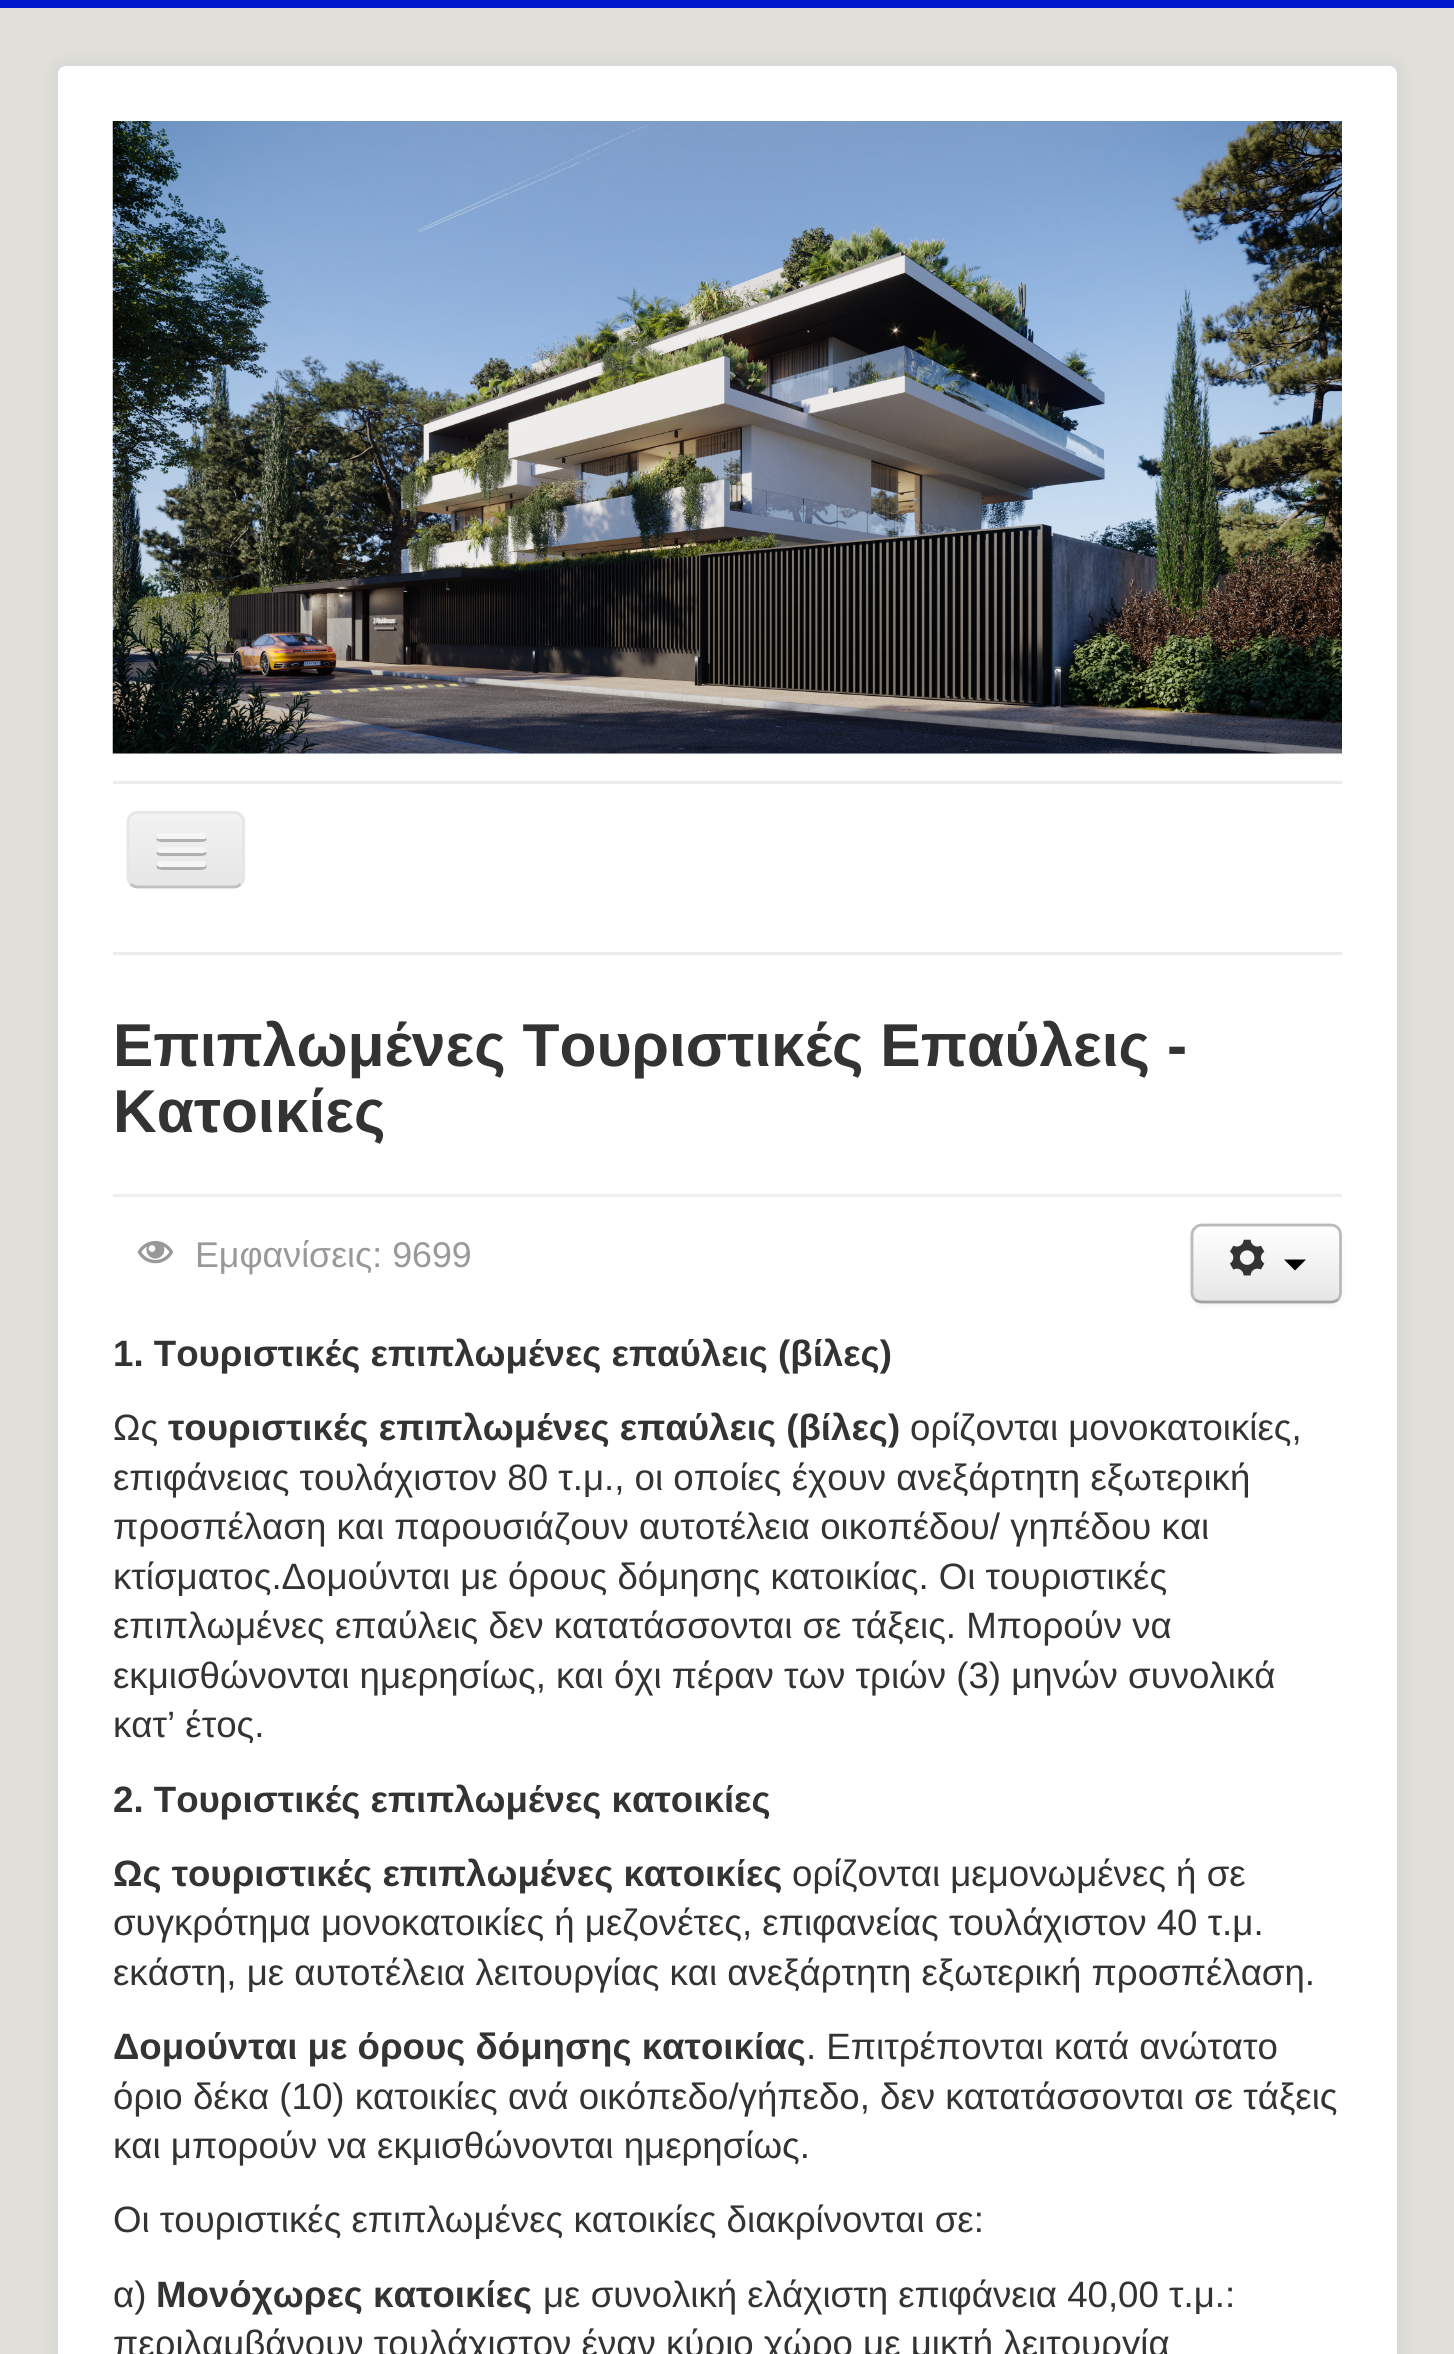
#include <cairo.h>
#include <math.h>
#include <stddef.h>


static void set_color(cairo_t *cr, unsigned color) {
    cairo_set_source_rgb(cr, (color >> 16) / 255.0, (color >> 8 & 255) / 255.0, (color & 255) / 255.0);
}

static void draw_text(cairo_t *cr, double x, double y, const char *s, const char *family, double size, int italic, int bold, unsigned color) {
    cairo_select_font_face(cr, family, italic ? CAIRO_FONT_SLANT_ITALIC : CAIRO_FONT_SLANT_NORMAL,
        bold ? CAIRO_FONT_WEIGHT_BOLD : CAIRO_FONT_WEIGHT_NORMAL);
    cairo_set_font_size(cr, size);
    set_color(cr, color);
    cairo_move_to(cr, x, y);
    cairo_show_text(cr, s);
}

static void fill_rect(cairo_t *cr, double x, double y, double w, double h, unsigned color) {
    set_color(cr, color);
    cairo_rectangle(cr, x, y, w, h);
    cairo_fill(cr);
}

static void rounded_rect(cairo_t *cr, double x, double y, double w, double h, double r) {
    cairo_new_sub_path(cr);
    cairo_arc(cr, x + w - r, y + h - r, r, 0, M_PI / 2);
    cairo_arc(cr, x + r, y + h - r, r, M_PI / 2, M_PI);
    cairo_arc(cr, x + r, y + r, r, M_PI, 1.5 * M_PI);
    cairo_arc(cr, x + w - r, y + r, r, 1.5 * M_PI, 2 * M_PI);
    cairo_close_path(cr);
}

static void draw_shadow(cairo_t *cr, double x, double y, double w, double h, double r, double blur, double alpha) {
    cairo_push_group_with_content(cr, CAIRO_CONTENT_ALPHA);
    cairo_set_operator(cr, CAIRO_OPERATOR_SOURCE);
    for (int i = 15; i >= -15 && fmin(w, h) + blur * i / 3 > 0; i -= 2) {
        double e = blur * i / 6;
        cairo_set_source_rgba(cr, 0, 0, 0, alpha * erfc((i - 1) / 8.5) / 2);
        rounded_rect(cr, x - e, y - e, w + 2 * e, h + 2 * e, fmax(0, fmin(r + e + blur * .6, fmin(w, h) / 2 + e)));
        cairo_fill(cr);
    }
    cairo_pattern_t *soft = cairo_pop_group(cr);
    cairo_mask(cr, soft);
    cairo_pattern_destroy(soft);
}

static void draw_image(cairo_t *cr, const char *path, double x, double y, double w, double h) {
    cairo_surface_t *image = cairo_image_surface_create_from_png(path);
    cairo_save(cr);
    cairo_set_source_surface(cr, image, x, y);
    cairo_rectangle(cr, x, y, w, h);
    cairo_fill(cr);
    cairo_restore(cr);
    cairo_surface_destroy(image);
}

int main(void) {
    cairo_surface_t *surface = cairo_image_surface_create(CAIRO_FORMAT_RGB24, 1454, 2354);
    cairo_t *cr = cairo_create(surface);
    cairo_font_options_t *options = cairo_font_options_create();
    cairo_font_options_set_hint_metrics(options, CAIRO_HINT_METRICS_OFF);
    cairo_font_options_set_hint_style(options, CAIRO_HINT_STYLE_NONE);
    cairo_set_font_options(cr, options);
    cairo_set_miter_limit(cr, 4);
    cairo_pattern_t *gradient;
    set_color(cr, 0xE0DFD9);
    cairo_paint(cr);
    fill_rect(cr, 0, 0, 1454, 8, 0x0018CC);
    set_color(cr, 0x000000);
    draw_shadow(cr, 55, 63, 1345, 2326, 11, 8, 0.05);
    set_color(cr, 0xFFFFFF);
    rounded_rect(cr, 55, 63, 1345, 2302, 11);
    cairo_fill(cr);
    rounded_rect(cr, 56.5, 64.5, 1342, 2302, 9.5);
    cairo_set_source_rgba(cr, 0, 0, 0, 0.15);
    cairo_set_line_width(cr, 3);
    cairo_stroke(cr);
    draw_image(cr, "assets/img1.png", 112, 121, 1230, 633);
    fill_rect(cr, 113, 781, 1229, 3, 0xECECEC);
    fill_rect(cr, 113, 952, 1229, 3, 0xECECEC);
    set_color(cr, 0xEDEDED);
    rounded_rect(cr, 127, 811, 118, 77, 11);
    cairo_fill(cr);
    cairo_save(cr);
    rounded_rect(cr, 127, 811, 118, 77, 11);
    cairo_clip(cr);
    gradient = cairo_pattern_create_linear(186, 814, 186, 886);
    cairo_pattern_add_color_stop_rgba(gradient, 0, 0.949, 0.949, 0.949, 1);
    cairo_pattern_add_color_stop_rgba(gradient, 1, 0.902, 0.902, 0.902, 1);
    cairo_set_source(cr, gradient);
    cairo_pattern_destroy(gradient);
    cairo_rectangle(cr, 127, 814, 118, 72);
    cairo_fill(cr);
    cairo_restore(cr);
    set_color(cr, 0xF3F3F3);
    cairo_new_path(cr);
    cairo_move_to(cr, 138, 817);
    cairo_line_to(cr, 234, 817);
    cairo_curve_to(cr, 238, 817, 242, 820, 242, 825);
    cairo_curve_to(cr, 242, 810, 230, 814, 218, 814);
    cairo_line_to(cr, 153, 814);
    cairo_curve_to(cr, 141, 814, 129, 810, 129, 825);
    cairo_curve_to(cr, 129, 820, 133, 817, 138, 817);
    cairo_close_path(cr);
    cairo_fill(cr);
    cairo_new_path(cr);
    cairo_move_to(cr, 240.5, 884);
    cairo_curve_to(cr, 239, 886, 236.5, 887, 234, 887);
    cairo_line_to(cr, 137.5, 887);
    cairo_curve_to(cr, 135, 887, 132.5, 886, 130.5, 884);
    set_color(cr, 0xBFBFBF);
    cairo_set_line_width(cr, 2.8);
    cairo_stroke(cr);
    cairo_new_path(cr);
    cairo_move_to(cr, 130.5, 884);
    cairo_curve_to(cr, 129, 882.5, 128, 880, 128, 877);
    cairo_line_to(cr, 128, 822);
    cairo_curve_to(cr, 128, 819.5, 129, 817, 130.5, 815.5);
    cairo_curve_to(cr, 132.5, 813.5, 135, 812.5, 137.5, 812.5);
    cairo_line_to(cr, 234, 812.5);
    cairo_curve_to(cr, 236.5, 812.5, 239, 813.5, 240.5, 815.5);
    cairo_curve_to(cr, 242.5, 817, 243.5, 819.5, 243.5, 822);
    cairo_line_to(cr, 243.5, 877);
    cairo_curve_to(cr, 243.5, 880, 242.5, 882.5, 240.5, 884);
    set_color(cr, 0xE6E6E6);
    cairo_stroke(cr);
    set_color(cr, 0xB2B2B2);
    cairo_new_path(cr);
    cairo_move_to(cr, 157, 838);
    cairo_curve_to(cr, 154, 843, 166, 842, 167, 842);
    cairo_line_to(cr, 196, 842);
    cairo_curve_to(cr, 197, 842, 209, 843, 206, 838);
    cairo_line_to(cr, 204, 839);
    cairo_line_to(cr, 159, 839);
    cairo_close_path(cr);
    cairo_fill(cr);
    set_color(cr, 0xF5F5F5);
    rounded_rect(cr, 157, 833, 49, 6, 3);
    cairo_fill(cr);
    set_color(cr, 0xB0B0B0);
    cairo_new_path(cr);
    cairo_move_to(cr, 157, 852);
    cairo_curve_to(cr, 154, 857, 166, 856, 167, 856);
    cairo_line_to(cr, 196, 856);
    cairo_curve_to(cr, 197, 856, 209, 857, 206, 852);
    cairo_line_to(cr, 204, 852);
    cairo_line_to(cr, 159, 852);
    cairo_close_path(cr);
    cairo_fill(cr);
    set_color(cr, 0xF5F5F5);
    rounded_rect(cr, 157, 847, 49, 6, 3);
    cairo_fill(cr);
    set_color(cr, 0xAFAFAF);
    cairo_new_path(cr);
    cairo_move_to(cr, 157, 865);
    cairo_curve_to(cr, 154, 871, 166, 870, 167, 870);
    cairo_line_to(cr, 196, 870);
    cairo_curve_to(cr, 197, 870, 209, 871, 206, 865);
    cairo_line_to(cr, 204, 866);
    cairo_line_to(cr, 159, 866);
    cairo_close_path(cr);
    cairo_fill(cr);
    set_color(cr, 0xF5F5F5);
    rounded_rect(cr, 157, 861, 49, 6, 3);
    cairo_fill(cr);
    fill_rect(cr, 113, 1194, 1229, 3, 0xEEEEEE);
    draw_text(cr, 113, 1066, "Επιπλωμένες Τουριστικές Επαύλεις -", "Liberation Sans", 60.5, 0, 1, 0x333333);
    draw_text(cr, 113, 1132, "Κατοικίες", "Liberation Sans", 60.5, 0, 1, 0x333333);
    draw_image(cr, "assets/img2.png", 137, 1240, 37, 24);
    draw_text(cr, 195, 1267, "Εμφανίσεις: 9699", "Liberation Sans", 35.75, 0, 0, 0x999999);
    set_color(cr, 0x000000);
    draw_shadow(cr, 1191, 1227, 151, 79, 11, 3, 0.05);
    set_color(cr, 0xF5F5F5);
    rounded_rect(cr, 1191, 1224, 151, 80, 11);
    cairo_fill(cr);
    cairo_save(cr);
    rounded_rect(cr, 1191, 1224, 151, 80, 11);
    cairo_clip(cr);
    gradient = cairo_pattern_create_linear(1266, 1227, 1266, 1301);
    cairo_pattern_add_color_stop_rgba(gradient, 0, 1, 1, 1, 1);
    cairo_pattern_add_color_stop_rgba(gradient, 1, 0.902, 0.902, 0.902, 1);
    cairo_set_source(cr, gradient);
    cairo_pattern_destroy(gradient);
    cairo_rectangle(cr, 1191, 1227, 151, 74);
    cairo_fill(cr);
    cairo_restore(cr);
    cairo_new_path(cr);
    cairo_move_to(cr, 1338, 1299.5);
    cairo_curve_to(cr, 1336, 1301, 1333.5, 1302, 1331, 1302);
    cairo_line_to(cr, 1202, 1302);
    cairo_curve_to(cr, 1199, 1302, 1196.5, 1301, 1195, 1299.5);
    set_color(cr, 0xA2A2A2);
    cairo_stroke(cr);
    cairo_new_path(cr);
    cairo_move_to(cr, 1195, 1299.5);
    cairo_curve_to(cr, 1193, 1297.5, 1192, 1295, 1192, 1292.5);
    cairo_line_to(cr, 1192, 1235);
    cairo_curve_to(cr, 1192, 1232, 1193, 1229.5, 1195, 1228);
    cairo_curve_to(cr, 1196.5, 1226, 1199, 1225, 1202, 1225);
    cairo_line_to(cr, 1331, 1225);
    cairo_curve_to(cr, 1333.5, 1225, 1336, 1226, 1338, 1228);
    cairo_curve_to(cr, 1339.5, 1229.5, 1340.5, 1232, 1340.5, 1235);
    cairo_line_to(cr, 1340.5, 1292.5);
    cairo_curve_to(cr, 1340.5, 1295, 1339.5, 1297.5, 1338, 1299.5);
    set_color(cr, 0xBBBBBB);
    cairo_stroke(cr);
    draw_image(cr, "assets/img3.png", 1230, 1239, 35, 37);
    set_color(cr, 0x000000);
    cairo_new_path(cr);
    cairo_move_to(cr, 1284, 1259.5);
    cairo_line_to(cr, 1306, 1259.5);
    cairo_line_to(cr, 1295, 1270.5);
    cairo_close_path(cr);
    cairo_fill(cr);
    draw_text(cr, 113, 1366, "1. Τουριστικές επιπλωμένες επαύλεις (βίλες)", "Liberation Sans", 36.65, 0, 1, 0x333333);
    draw_text(cr, 113, 1440, "Ως", "Liberation Sans", 36.65, 0, 0, 0x333333);
    draw_text(cr, 168, 1440, "τουριστικές επιπλωμένες επαύλεις (βίλες)", "Liberation Sans", 36.65, 0, 1, 0x333333);
    draw_text(cr, 910, 1440, "ορίζονται μονοκατοικίες,", "Liberation Sans", 36.65, 0, 0, 0x333333);
    draw_text(cr, 113, 1490, "επιφάνειας τουλάχιστον 80 τ.μ., οι οποίες έχουν ανεξάρτητη εξωτερική", "Liberation Sans", 36.65, 0, 0, 0x333333);
    draw_text(cr, 113, 1539, "προσπέλαση και παρουσιάζουν αυτοτέλεια οικοπέδου/ γηπέδου και", "Liberation Sans", 36.65, 0, 0, 0x333333);
    draw_text(cr, 113, 1589, "κτίσματος.Δομούνται με όρους δόμησης κατοικίας. Οι τουριστικές", "Liberation Sans", 36.65, 0, 0, 0x333333);
    draw_text(cr, 113, 1638, "επιπλωμένες επαύλεις δεν κατατάσσονται σε τάξεις. Μπορούν να", "Liberation Sans", 36.65, 0, 0, 0x333333);
    draw_text(cr, 113, 1688, "εκμισθώνονται ημερησίως, και όχι πέραν των τριών (3) μηνών συνολικά", "Liberation Sans", 36.65, 0, 0, 0x333333);
    draw_text(cr, 113, 1737, "κατ’ έτος.", "Liberation Sans", 36.65, 0, 0, 0x333333);
    draw_text(cr, 113, 1812, "2. Τουριστικές επιπλωμένες κατοικίες", "Liberation Sans", 36.65, 0, 1, 0x333333);
    draw_text(cr, 113, 1886, "Ως τουριστικές επιπλωμένες κατοικίες", "Liberation Sans", 36.65, 0, 1, 0x333333);
    draw_text(cr, 792, 1886, "ορίζονται μεμονωμένες ή σε", "Liberation Sans", 36.65, 0, 0, 0x333333);
    draw_text(cr, 113, 1935, "συγκρότημα μονοκατοικίες ή μεζονέτες, επιφανείας τουλάχιστον 40 τ.μ.", "Liberation Sans", 36.65, 0, 0, 0x333333);
    draw_text(cr, 113, 1985, "εκάστη, με αυτοτέλεια λειτουργίας και ανεξάρτητη εξωτερική προσπέλαση.", "Liberation Sans", 36.65, 0, 0, 0x333333);
    draw_text(cr, 113, 2059, "Δομούνται με όρους δόμησης κατοικίας", "Liberation Sans", 36.65, 0, 1, 0x333333);
    draw_text(cr, 806, 2059, ". Επιτρέπονται κατά ανώτατο", "Liberation Sans", 36.65, 0, 0, 0x333333);
    draw_text(cr, 113, 2109, "όριο δέκα (10) κατοικίες ανά οικόπεδο/γήπεδο, δεν κατατάσσονται σε τάξεις", "Liberation Sans", 36.65, 0, 0, 0x333333);
    draw_text(cr, 113, 2158, "και μπορούν να εκμισθώνονται ημερησίως.", "Liberation Sans", 36.65, 0, 0, 0x333333);
    draw_text(cr, 113, 2232, "Οι τουριστικές επιπλωμένες κατοικίες διακρίνονται σε:", "Liberation Sans", 36.65, 0, 0, 0x333333);
    draw_text(cr, 113, 2307, "α)", "Liberation Sans", 36.65, 0, 0, 0x333333);
    draw_text(cr, 156, 2307, "Μονόχωρες κατοικίες", "Liberation Sans", 36.65, 0, 1, 0x333333);
    draw_text(cr, 543, 2307, "με συνολική ελάχιστη επιφάνεια 40,00 τ.μ.:", "Liberation Sans", 36.65, 0, 0, 0x333333);
    draw_text(cr, 113, 2356, "περιλαμβάνουν τουλάχιστον έναν κύριο χώρο με μικτή λειτουργία", "Liberation Sans", 36.65, 0, 0, 0x333333);
    cairo_surface_write_to_png(surface, "output.png");
    cairo_font_options_destroy(options);
    cairo_destroy(cr);
    cairo_surface_destroy(surface);
    return 0;
}
